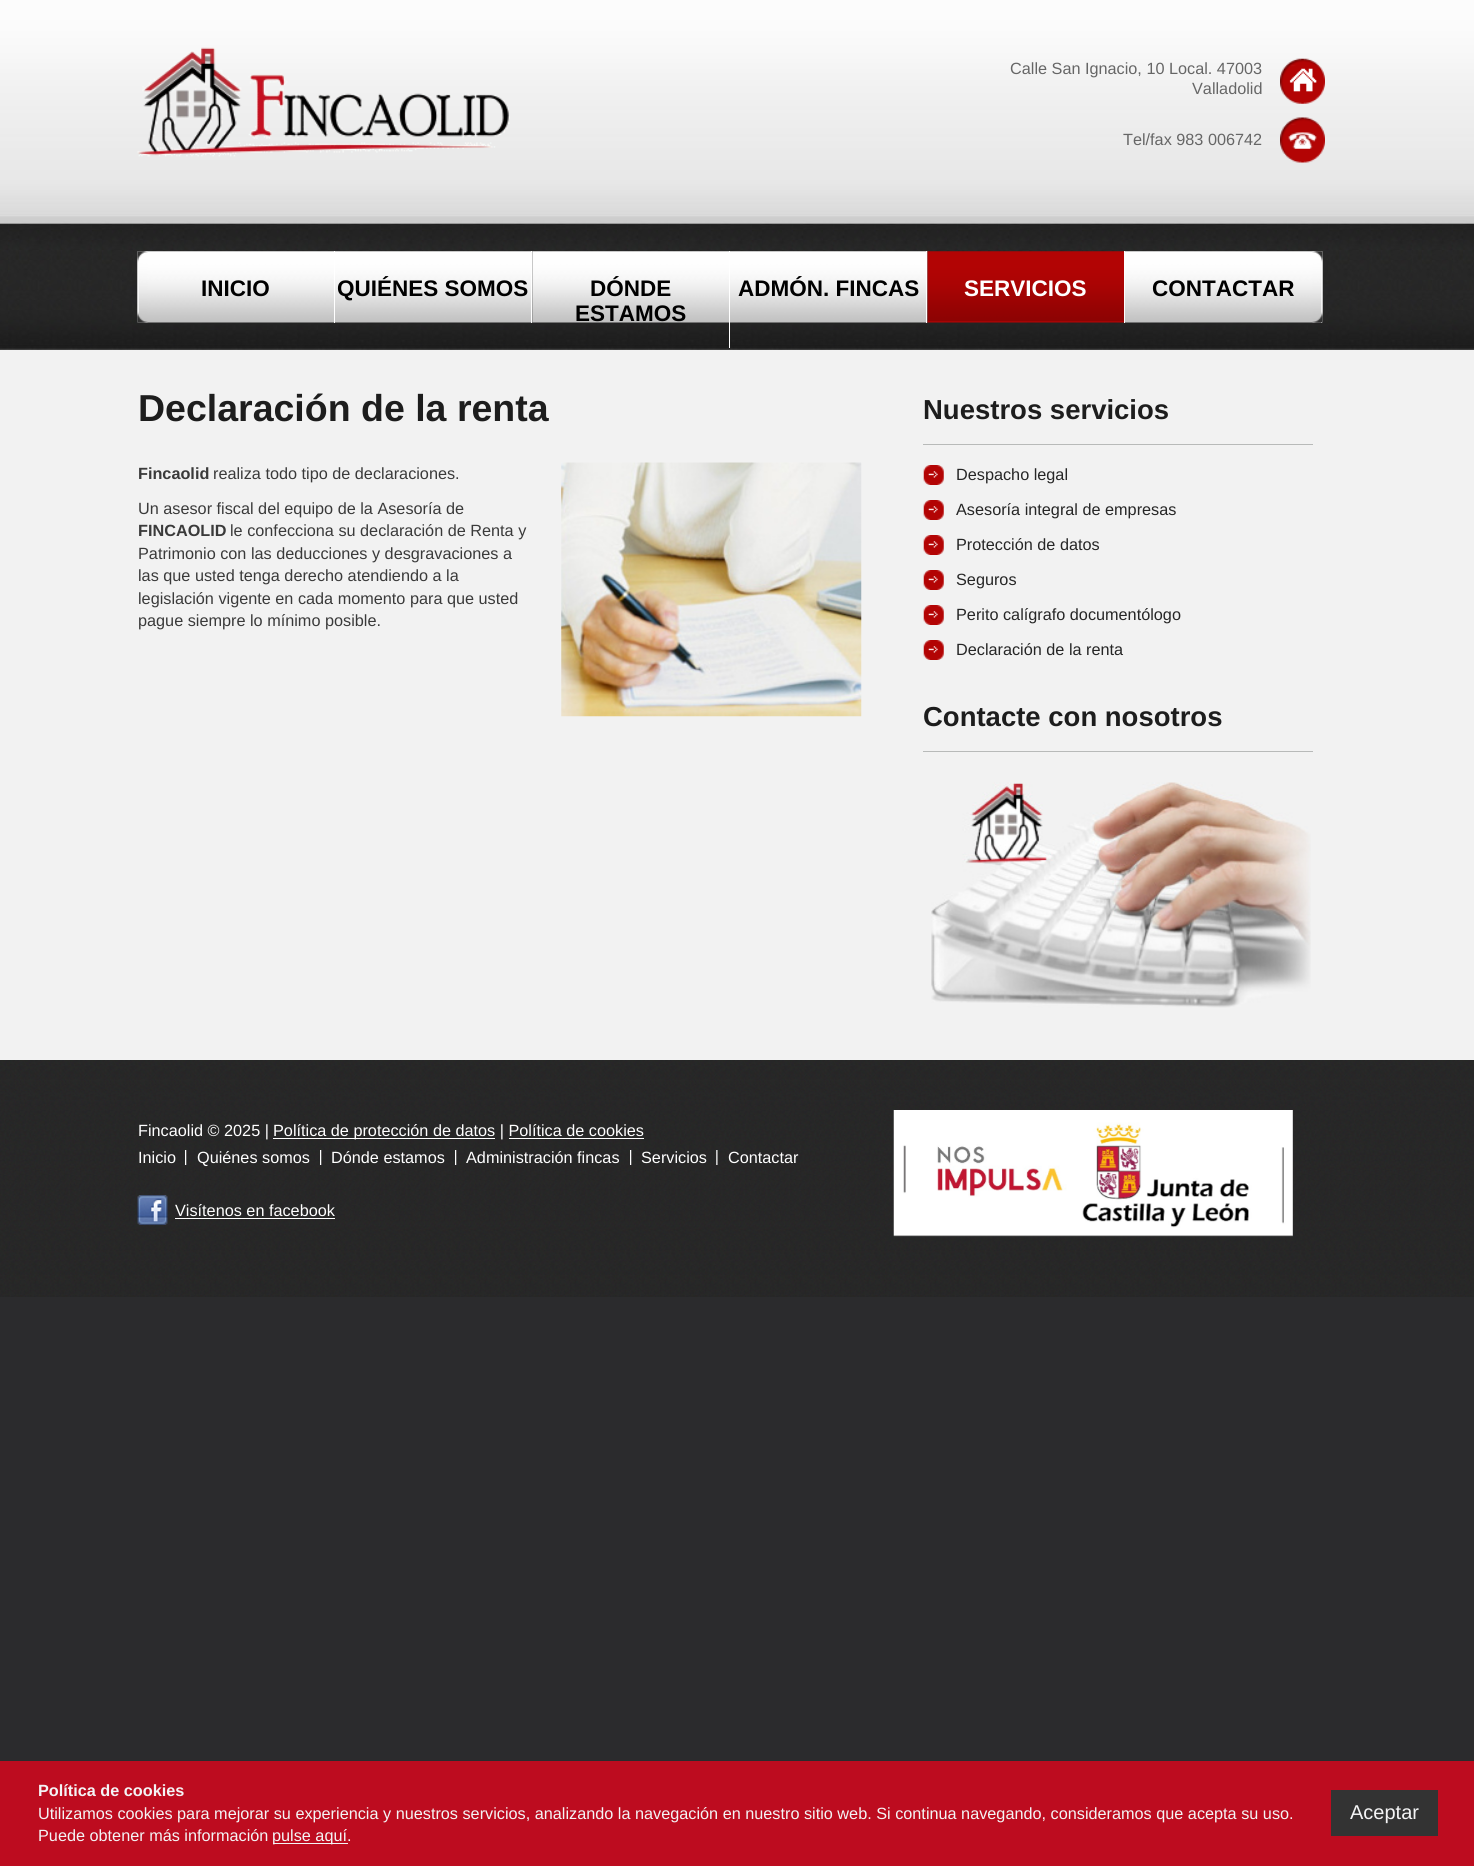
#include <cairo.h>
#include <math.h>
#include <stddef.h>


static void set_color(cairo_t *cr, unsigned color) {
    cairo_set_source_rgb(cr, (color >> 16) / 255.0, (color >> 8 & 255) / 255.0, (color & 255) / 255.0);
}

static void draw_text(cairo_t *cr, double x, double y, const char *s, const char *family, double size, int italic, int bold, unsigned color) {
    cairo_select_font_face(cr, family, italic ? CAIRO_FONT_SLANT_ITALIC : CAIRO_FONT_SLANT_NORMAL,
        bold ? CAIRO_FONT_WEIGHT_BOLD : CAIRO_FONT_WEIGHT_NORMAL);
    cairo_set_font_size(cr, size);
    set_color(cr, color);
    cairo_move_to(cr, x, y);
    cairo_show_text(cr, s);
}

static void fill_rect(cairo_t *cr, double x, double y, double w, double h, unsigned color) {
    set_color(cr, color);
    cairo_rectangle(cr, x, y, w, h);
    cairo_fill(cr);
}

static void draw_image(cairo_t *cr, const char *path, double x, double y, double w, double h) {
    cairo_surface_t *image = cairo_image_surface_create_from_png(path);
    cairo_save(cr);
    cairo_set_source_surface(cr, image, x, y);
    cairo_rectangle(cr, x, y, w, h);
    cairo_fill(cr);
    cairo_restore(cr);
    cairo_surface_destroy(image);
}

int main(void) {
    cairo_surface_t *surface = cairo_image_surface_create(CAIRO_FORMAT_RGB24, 1474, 1866);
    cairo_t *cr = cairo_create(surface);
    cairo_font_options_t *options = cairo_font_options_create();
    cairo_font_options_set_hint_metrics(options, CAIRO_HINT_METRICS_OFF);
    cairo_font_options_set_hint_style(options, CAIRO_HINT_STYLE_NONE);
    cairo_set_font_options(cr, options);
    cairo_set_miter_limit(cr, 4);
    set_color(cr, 0x2B2B2D);
    cairo_paint(cr);
    draw_image(cr, "assets/img1.png", 0, 0, 1474, 350);
    draw_image(cr, "assets/img2.png", 137, 47, 373, 110);
    draw_text(cr, 1010, 74, "Calle San Ignacio, 10 Local. 47003", "Liberation Sans", 16.25, 0, 0, 0x666666);
    draw_text(cr, 1192, 94, "Valladolid", "Liberation Sans", 16.25, 0, 0, 0x666666);
    draw_image(cr, "assets/img3.png", 1280, 58, 45, 46);
    draw_text(cr, 1123, 145, "Tel/fax 983 006742", "Liberation Sans", 16.25, 0, 0, 0x666666);
    draw_image(cr, "assets/img4.png", 1280, 117, 45, 46);
    draw_image(cr, "assets/img5.png", 137, 251, 197, 72);
    fill_rect(cr, 334, 251, 1, 72, 0xFFFFFF);
    draw_image(cr, "assets/img6.png", 137, 251, 11, 72);
    draw_text(cr, 201, 296, "INICIO", "Liberation Sans", 22.5, 0, 1, 0x000000);
    draw_image(cr, "assets/img7.png", 335, 251, 198, 72);
    fill_rect(cr, 531, 251, 1, 72, 0xFFFFFF);
    draw_text(cr, 337, 296, "QUIÉNES SOMOS", "Liberation Sans", 22.5, 0, 1, 0x000000);
    draw_image(cr, "assets/img8.png", 532, 251, 197, 72);
    fill_rect(cr, 729, 251, 1, 97, 0xFFFFFF);
    draw_text(cr, 590, 296, "DÓNDE", "Liberation Sans", 22.5, 0, 1, 0x000000);
    draw_text(cr, 575, 321, "ESTAMOS", "Liberation Sans", 22.5, 0, 1, 0x000000);
    draw_image(cr, "assets/img9.png", 730, 251, 198, 72);
    fill_rect(cr, 926, 251, 1, 72, 0xFFFFFF);
    draw_text(cr, 738, 296, "ADMÓN. FINCAS", "Liberation Sans", 22.5, 0, 1, 0x000000);
    draw_image(cr, "assets/img10.png", 927, 251, 197, 72);
    fill_rect(cr, 1124, 251, 1, 72, 0xFFFFFF);
    draw_text(cr, 964, 296, "SERVICIOS", "Liberation Sans", 22.5, 0, 1, 0xFFFFFF);
    draw_image(cr, "assets/img11.png", 1125, 251, 198, 72);
    fill_rect(cr, 1321, 251, 1, 72, 0xFFFFFF);
    draw_text(cr, 1152, 296, "CONTACTAR", "Liberation Sans", 22.5, 0, 1, 0x000000);
    draw_image(cr, "assets/img12.png", 1312, 251, 11, 72);
    fill_rect(cr, 0, 350, 1474, 710, 0xF2F2F2);
    draw_text(cr, 138, 421, "Declaración de la renta", "Liberation Sans", 37.5, 0, 1, 0x1D1D1D);
    draw_text(cr, 138, 479, "Fincaolid", "Liberation Sans", 16.25, 0, 1, 0x3A3A3A);
    draw_text(cr, 213, 479, "realiza todo tipo de declaraciones.", "Liberation Sans", 16.25, 0, 0, 0x3A3A3A);
    draw_image(cr, "assets/img13.png", 561, 462, 301, 255);
    draw_text(cr, 138, 514, "Un asesor fiscal del equipo de la Asesoría de", "Liberation Sans", 16.25, 0, 0, 0x3A3A3A);
    draw_text(cr, 138, 536, "FINCAOLID", "Liberation Sans", 16.25, 0, 1, 0x3A3A3A);
    draw_text(cr, 230, 536, "le confecciona su declaración de Renta y", "Liberation Sans", 16.25, 0, 0, 0x3A3A3A);
    draw_text(cr, 138, 559, "Patrimonio con las deducciones y desgravaciones a", "Liberation Sans", 16.25, 0, 0, 0x3A3A3A);
    draw_text(cr, 138, 581, "las que usted tenga derecho atendiendo a la", "Liberation Sans", 16.25, 0, 0, 0x3A3A3A);
    draw_text(cr, 138, 604, "legislación vigente en cada momento para que usted", "Liberation Sans", 16.25, 0, 0, 0x3A3A3A);
    draw_text(cr, 138, 626, "pague siempre lo mínimo posible.", "Liberation Sans", 16.25, 0, 0, 0x3A3A3A);
    fill_rect(cr, 923, 444, 390, 1, 0xB8BAB9);
    draw_text(cr, 923, 419, "Nuestros servicios", "Liberation Sans", 27.5, 0, 1, 0x1D1D1D);
    draw_image(cr, "assets/img14.png", 923, 465, 21, 20);
    draw_text(cr, 956, 480, "Despacho legal", "Liberation Sans", 16.25, 0, 0, 0x262626);
    draw_image(cr, "assets/img14.png", 923, 500, 21, 20);
    draw_text(cr, 956, 515, "Asesoría integral de empresas", "Liberation Sans", 16.25, 0, 0, 0x262626);
    draw_image(cr, "assets/img14.png", 923, 535, 21, 20);
    draw_text(cr, 956, 550, "Protección de datos", "Liberation Sans", 16.25, 0, 0, 0x262626);
    draw_image(cr, "assets/img14.png", 923, 570, 21, 20);
    draw_text(cr, 956, 585, "Seguros", "Liberation Sans", 16.25, 0, 0, 0x262626);
    draw_image(cr, "assets/img14.png", 923, 605, 21, 20);
    draw_text(cr, 956, 620, "Perito calígrafo documentólogo", "Liberation Sans", 16.25, 0, 0, 0x262626);
    draw_image(cr, "assets/img14.png", 923, 640, 21, 20);
    draw_text(cr, 956, 655, "Declaración de la renta", "Liberation Sans", 16.25, 0, 0, 0x262626);
    fill_rect(cr, 923, 751, 390, 1, 0xB8BAB9);
    draw_text(cr, 923, 726, "Contacte con nosotros", "Liberation Sans", 27.5, 0, 1, 0x1D1D1D);
    draw_image(cr, "assets/img15.png", 931, 782, 380, 226);
    draw_image(cr, "assets/img16.png", 0, 1060, 1474, 237);
    draw_text(cr, 138, 1136, "Fincaolid © 2025 |", "Liberation Sans", 16.25, 0, 0, 0xFFFFFF);
    fill_rect(cr, 273, 1138, 222, 1, 0xFFFFFF);
    draw_text(cr, 273, 1136, "Política de protección de datos | Política de cookies", "Liberation Sans", 16.25, 0, 0, 0xFFFFFF);
    fill_rect(cr, 509, 1138, 135, 1, 0xFFFFFF);
    draw_text(cr, 138, 1163, "Inicio", "Liberation Sans", 16.25, 0, 0, 0xFFFFFF);
    draw_image(cr, "assets/img17.png", 185, 1150, 2, 15);
    draw_text(cr, 197, 1163, "Quiénes somos", "Liberation Sans", 16.25, 0, 0, 0xFFFFFF);
    draw_image(cr, "assets/img17.png", 320, 1150, 2, 15);
    draw_text(cr, 331, 1163, "Dónde estamos", "Liberation Sans", 16.25, 0, 0, 0xFFFFFF);
    draw_image(cr, "assets/img17.png", 455, 1150, 2, 15);
    draw_text(cr, 466, 1163, "Administración fincas", "Liberation Sans", 16.25, 0, 0, 0xFFFFFF);
    draw_image(cr, "assets/img18.png", 630, 1150, 2, 15);
    draw_text(cr, 641, 1163, "Servicios", "Liberation Sans", 16.25, 0, 0, 0xFFFFFF);
    draw_image(cr, "assets/img19.png", 716, 1150, 2, 15);
    draw_text(cr, 728, 1163, "Contactar", "Liberation Sans", 16.25, 0, 0, 0xFFFFFF);
    draw_image(cr, "assets/img20.png", 137, 1195, 31, 30);
    draw_text(cr, 175, 1216, "Visítenos en facebook", "Liberation Sans", 16.25, 0, 0, 0xFFFFFF);
    fill_rect(cr, 175, 1218, 160, 1, 0xFFFFFF);
    draw_image(cr, "assets/img21.png", 893, 1110, 400, 127);
    fill_rect(cr, 0, 1761, 1474, 105, 0xBD0C1F);
    draw_text(cr, 38, 1796, "Política de cookies", "Liberation Sans", 16.25, 0, 1, 0xF4F4F5);
    draw_text(cr, 38, 1819, "Utilizamos cookies para mejorar su experiencia y nuestros servicios, analizando la navegación en nuestro sitio web. Si continua navegando, consideramos que acepta su uso.", "Liberation Sans", 16.25, 0, 0, 0xF4F4F5);
    draw_text(cr, 38, 1841, "Puede obtener más información", "Liberation Sans", 16.25, 0, 0, 0xF4F4F5);
    fill_rect(cr, 273, 1843, 75, 1, 0xF4F4F5);
    draw_text(cr, 272, 1841, "pulse aquí.", "Liberation Sans", 16.25, 0, 0, 0xF4F4F5);
    fill_rect(cr, 1331, 1790, 107, 46, 0x333333);
    draw_text(cr, 1350, 1819, "Aceptar", "Liberation Sans", 20, 0, 0, 0xF4F4F5);
    cairo_surface_write_to_png(surface, "output.png");
    cairo_font_options_destroy(options);
    cairo_destroy(cr);
    cairo_surface_destroy(surface);
    return 0;
}
